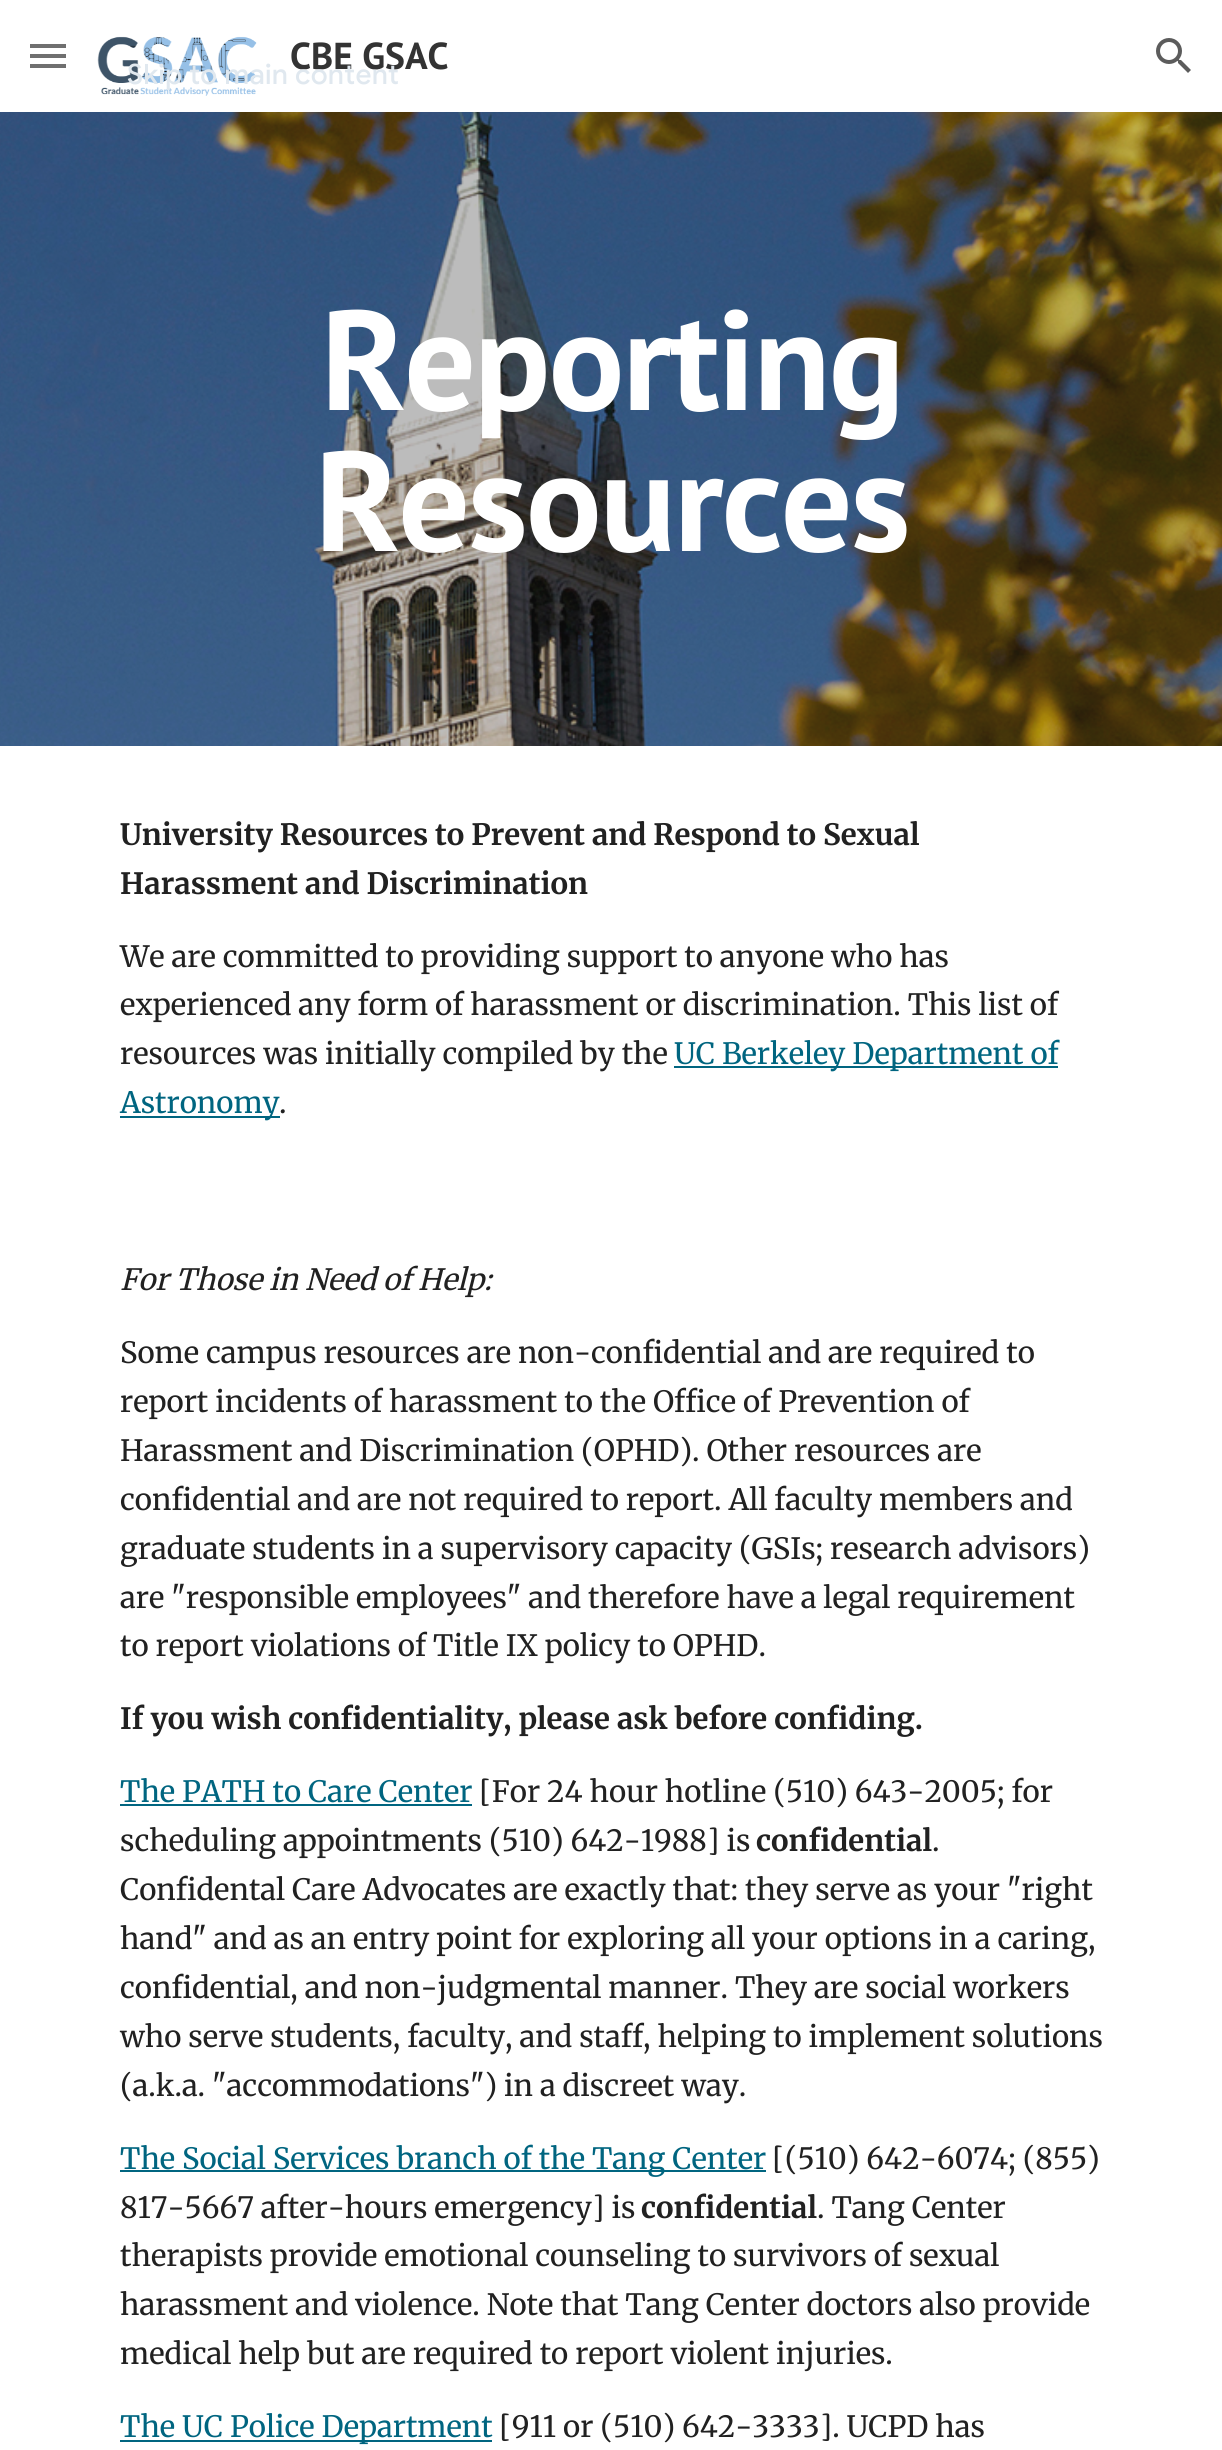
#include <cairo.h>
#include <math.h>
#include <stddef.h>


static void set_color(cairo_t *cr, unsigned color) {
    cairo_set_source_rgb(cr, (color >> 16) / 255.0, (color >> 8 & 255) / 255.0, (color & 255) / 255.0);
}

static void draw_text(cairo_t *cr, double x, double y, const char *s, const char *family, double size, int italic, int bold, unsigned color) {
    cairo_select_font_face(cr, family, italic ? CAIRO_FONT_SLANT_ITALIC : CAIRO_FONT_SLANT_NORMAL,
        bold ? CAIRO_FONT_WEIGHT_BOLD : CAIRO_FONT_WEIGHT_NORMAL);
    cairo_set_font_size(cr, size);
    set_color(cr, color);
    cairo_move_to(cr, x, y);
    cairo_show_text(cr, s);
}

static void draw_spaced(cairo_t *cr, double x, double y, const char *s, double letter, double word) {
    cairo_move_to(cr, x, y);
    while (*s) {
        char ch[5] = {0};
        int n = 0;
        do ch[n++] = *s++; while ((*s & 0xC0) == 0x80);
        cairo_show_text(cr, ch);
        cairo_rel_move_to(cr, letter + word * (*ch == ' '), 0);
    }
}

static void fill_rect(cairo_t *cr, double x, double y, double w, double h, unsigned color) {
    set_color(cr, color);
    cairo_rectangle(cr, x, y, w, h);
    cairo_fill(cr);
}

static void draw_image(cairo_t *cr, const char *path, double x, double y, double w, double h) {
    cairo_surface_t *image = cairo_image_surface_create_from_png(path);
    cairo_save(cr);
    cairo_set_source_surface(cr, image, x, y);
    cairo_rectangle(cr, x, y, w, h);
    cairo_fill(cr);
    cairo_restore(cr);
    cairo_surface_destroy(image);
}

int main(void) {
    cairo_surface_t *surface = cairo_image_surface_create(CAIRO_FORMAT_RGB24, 1222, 2450);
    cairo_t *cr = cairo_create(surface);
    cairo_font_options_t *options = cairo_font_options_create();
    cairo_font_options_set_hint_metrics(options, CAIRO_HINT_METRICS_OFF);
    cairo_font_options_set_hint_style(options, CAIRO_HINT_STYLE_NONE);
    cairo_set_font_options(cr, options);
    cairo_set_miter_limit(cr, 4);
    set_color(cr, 0xFFFFFF);
    cairo_paint(cr);
    fill_rect(cr, 30, 44, 36, 4, 0x5C5C5C);
    fill_rect(cr, 30, 54, 36, 4, 0x5C5C5C);
    fill_rect(cr, 30, 64, 36, 4, 0x5C5C5C);
    cairo_set_source_rgba(cr, 1, 1, 1, 0.12);
    cairo_rectangle(cr, 30, 44, 36, 24);
    cairo_fill(cr);
    draw_image(cr, "assets/img1.png", 97, 36, 160, 60);
    draw_text(cr, 290, 69, "CBE GSAC", "PT Sans", 37.5, 0, 1, 0x333333);
    draw_image(cr, "assets/img2.png", 1156, 38, 35, 35);
    draw_image(cr, "assets/img3.png", 0, 112, 1222, 634);
    cairo_set_font_size(cr, 141.5);
    set_color(cr, 0xFFFFFF);
    draw_spaced(cr, 321, 410, "Reporting", -2, 0);
    draw_spaced(cr, 315, 551, "Resources", -2, 0);
    draw_text(cr, 120, 845, "University Resources to Prevent and Respond to Sexual", "Merriweather", 29.35, 0, 1, 0x212121);
    draw_text(cr, 120, 894, "Harassment and Discrimination", "Merriweather", 29.35, 0, 1, 0x212121);
    draw_text(cr, 120, 967, "We are committed to providing support to anyone who has", "Merriweather", 29.35, 0, 0, 0x212121);
    draw_text(cr, 120, 1015, "experienced any form of harassment or discrimination. This list of", "Merriweather", 29.35, 0, 0, 0x212121);
    draw_text(cr, 120, 1064, "resources was initially compiled by the", "Merriweather", 29.35, 0, 0, 0x212121);
    fill_rect(cr, 674, 1066, 384, 2, 0x006580);
    draw_text(cr, 674, 1064, "UC Berkeley Department of", "Merriweather", 29.35, 0, 0, 0x006580);
    fill_rect(cr, 120, 1116, 160, 2, 0x006580);
    draw_text(cr, 120, 1113, "Astronomy", "Merriweather", 29.35, 0, 0, 0x006580);
    draw_text(cr, 279, 1113, ".", "Merriweather", 29.35, 0, 0, 0x212121);
    draw_text(cr, 120, 1290, "For Those in Need of Help:", "Merriweather", 29.35, 1, 0, 0x212121);
    draw_text(cr, 120, 1363, "Some campus resources are non-confidential and are required to", "Merriweather", 29.35, 0, 0, 0x212121);
    draw_text(cr, 120, 1412, "report incidents of harassment to the Office of Prevention of", "Merriweather", 29.35, 0, 0, 0x212121);
    draw_text(cr, 120, 1461, "Harassment and Discrimination (OPHD). Other resources are", "Merriweather", 29.35, 0, 0, 0x212121);
    draw_text(cr, 120, 1510, "confidential and are not required to report. All faculty members and", "Merriweather", 29.35, 0, 0, 0x212121);
    draw_text(cr, 120, 1559, "graduate students in a supervisory capacity (GSIs; research advisors)", "Merriweather", 29.35, 0, 0, 0x212121);
    draw_text(cr, 120, 1608, "are \"responsible employees\" and therefore have a legal requirement", "Merriweather", 29.35, 0, 0, 0x212121);
    draw_text(cr, 120, 1656, "to report violations of Title IX policy to OPHD.", "Merriweather", 29.35, 0, 0, 0x212121);
    draw_text(cr, 120, 1729, "If you wish confidentiality, please ask before confiding.", "Merriweather", 29.35, 0, 1, 0x212121);
    draw_text(cr, 120, 1802, "The PATH to Care Center", "Merriweather", 29.35, 0, 0, 0x006580);
    fill_rect(cr, 120, 1804, 352, 2, 0x006580);
    draw_text(cr, 479, 1802, "[For 24 hour hotline (510) 643-2005; for", "Merriweather", 29.35, 0, 0, 0x212121);
    draw_text(cr, 120, 1851, "scheduling appointments (510) 642-1988] is", "Merriweather", 29.35, 0, 0, 0x212121);
    draw_text(cr, 756, 1851, "confidential", "Merriweather", 29.35, 0, 1, 0x212121);
    draw_text(cr, 932, 1851, ".", "Merriweather", 29.35, 0, 0, 0x212121);
    draw_text(cr, 120, 1900, "Confidental Care Advocates are exactly that: they serve as your \"right", "Merriweather", 29.35, 0, 0, 0x212121);
    draw_text(cr, 120, 1949, "hand\" and as an entry point for exploring all your options in a caring,", "Merriweather", 29.35, 0, 0, 0x212121);
    draw_text(cr, 120, 1998, "confidential, and non-judgmental manner. They are social workers", "Merriweather", 29.35, 0, 0, 0x212121);
    draw_text(cr, 120, 2047, "who serve students, faculty, and staff, helping to implement solutions", "Merriweather", 29.35, 0, 0, 0x212121);
    draw_text(cr, 120, 2096, "(a.k.a. \"accommodations\") in a discreet way.", "Merriweather", 29.35, 0, 0, 0x212121);
    fill_rect(cr, 120, 2170, 646, 2, 0x006580);
    draw_text(cr, 120, 2169, "The Social Services branch of the Tang Center", "Merriweather", 29.35, 0, 0, 0x006580);
    draw_text(cr, 772, 2169, "[(510) 642-6074; (855)", "Merriweather", 29.35, 0, 0, 0x212121);
    draw_text(cr, 120, 2218, "817-5667 after-hours emergency] is", "Merriweather", 29.35, 0, 0, 0x212121);
    draw_text(cr, 641, 2218, "confidential", "Merriweather", 29.35, 0, 1, 0x212121);
    draw_text(cr, 817, 2218, ". Tang Center", "Merriweather", 29.35, 0, 0, 0x212121);
    draw_text(cr, 120, 2266, "therapists provide emotional counseling to survivors of sexual", "Merriweather", 29.35, 0, 0, 0x212121);
    draw_text(cr, 120, 2315, "harassment and violence. Note that Tang Center doctors also provide", "Merriweather", 29.35, 0, 0, 0x212121);
    draw_text(cr, 120, 2364, "medical help but are required to report violent injuries.", "Merriweather", 29.35, 0, 0, 0x212121);
    fill_rect(cr, 120, 2440, 372, 2, 0x006580);
    draw_text(cr, 120, 2437, "The UC Police Department", "Merriweather", 29.35, 0, 0, 0x006580);
    draw_text(cr, 499, 2437, "[911 or (510) 642-3333]. UCPD has", "Merriweather", 29.35, 0, 0, 0x212121);
    cairo_select_font_face(cr, "Google Sans Medium", CAIRO_FONT_SLANT_NORMAL, CAIRO_FONT_WEIGHT_NORMAL);
    cairo_set_font_size(cr, 28);
    set_color(cr, 0xE0E8EF);
    draw_spaced(cr, 127, 84, "Skip to main content", 0.25, 0);
    cairo_surface_write_to_png(surface, "output.png");
    cairo_font_options_destroy(options);
    cairo_destroy(cr);
    cairo_surface_destroy(surface);
    return 0;
}
